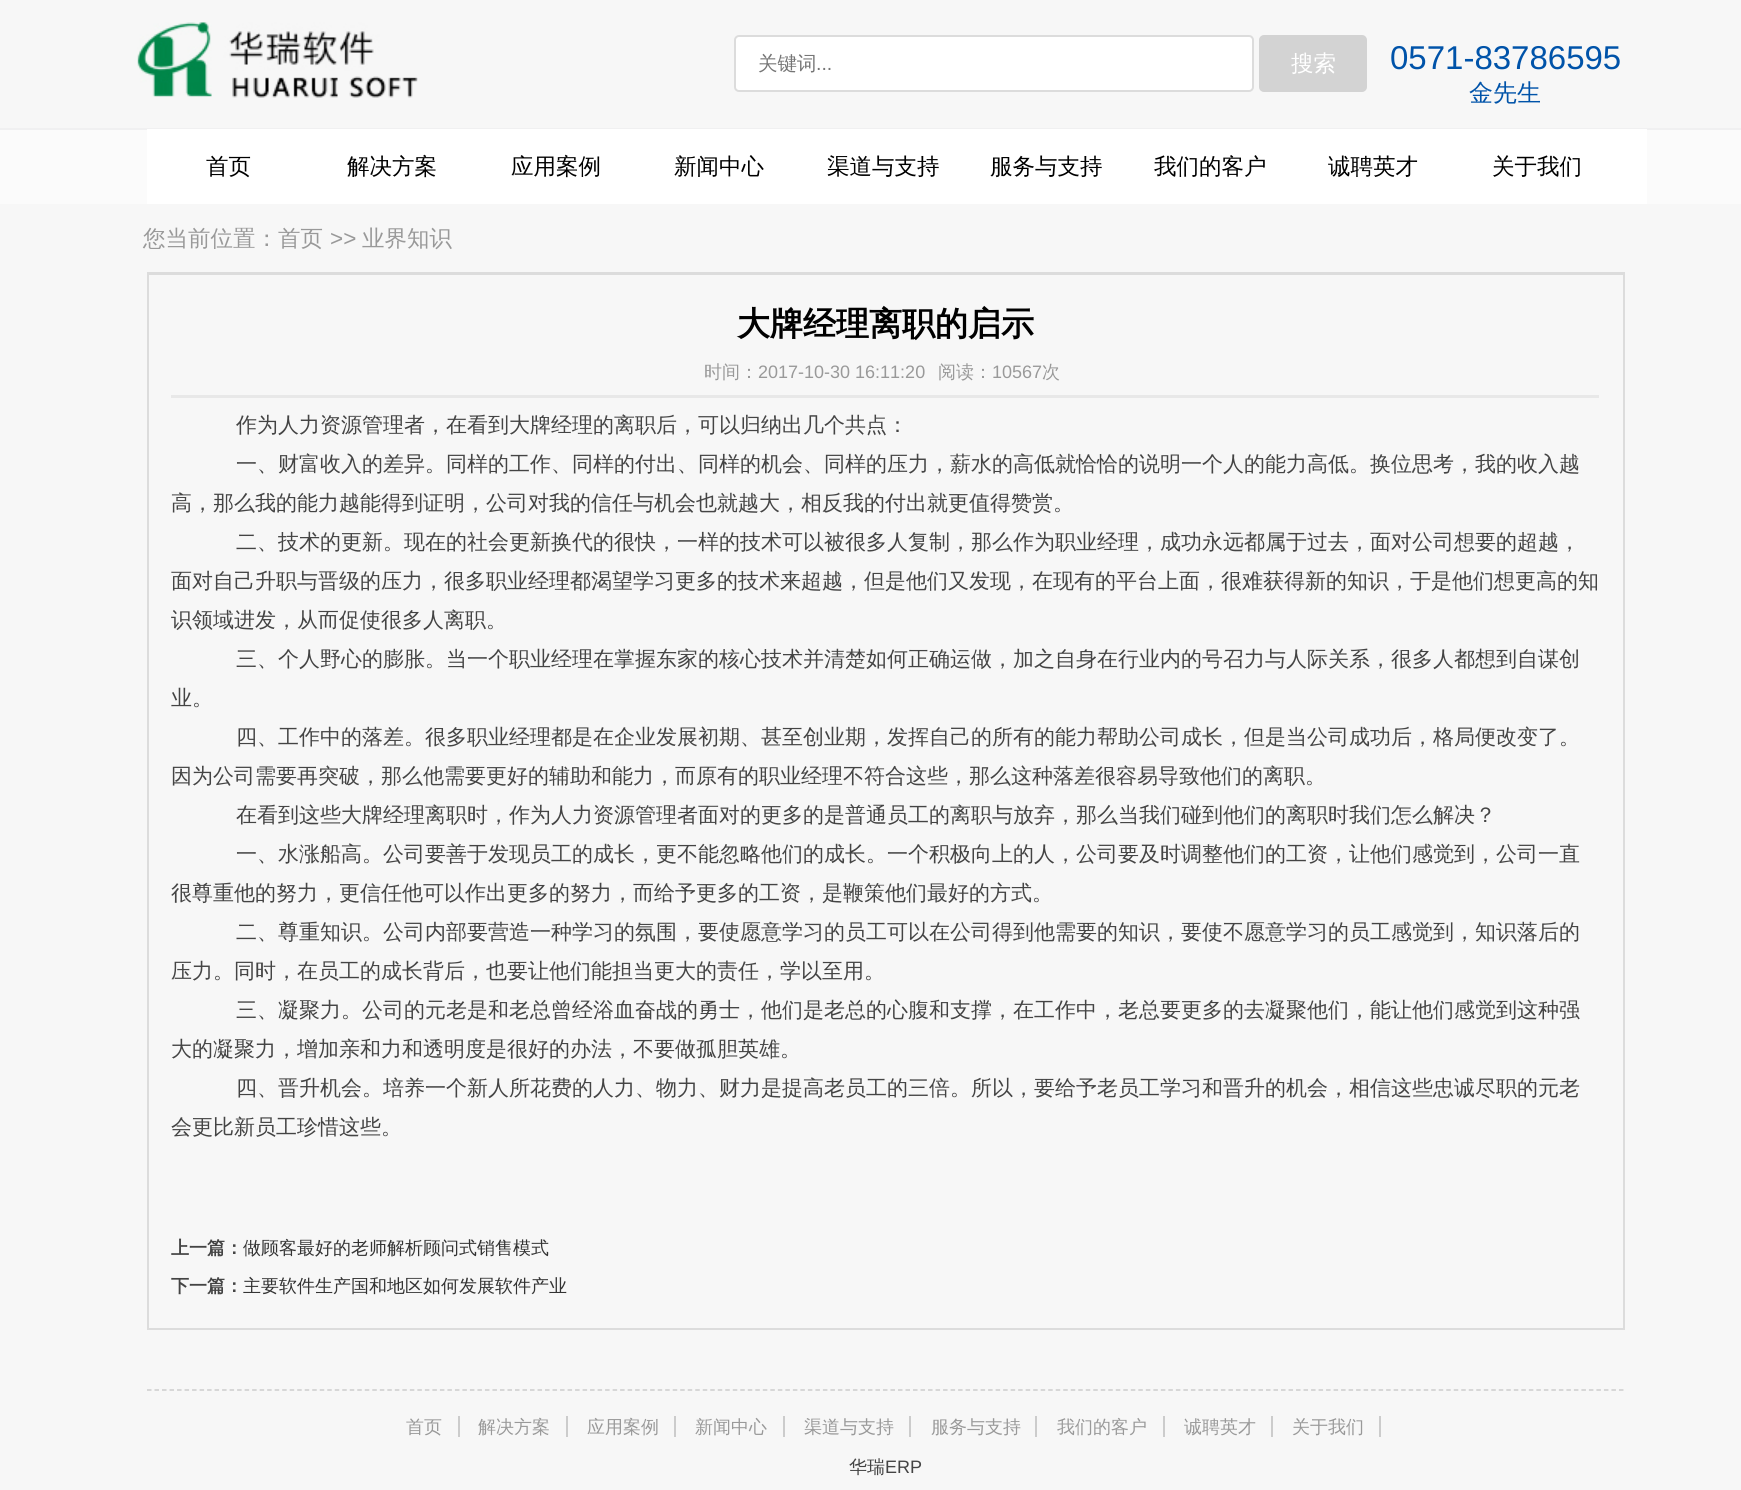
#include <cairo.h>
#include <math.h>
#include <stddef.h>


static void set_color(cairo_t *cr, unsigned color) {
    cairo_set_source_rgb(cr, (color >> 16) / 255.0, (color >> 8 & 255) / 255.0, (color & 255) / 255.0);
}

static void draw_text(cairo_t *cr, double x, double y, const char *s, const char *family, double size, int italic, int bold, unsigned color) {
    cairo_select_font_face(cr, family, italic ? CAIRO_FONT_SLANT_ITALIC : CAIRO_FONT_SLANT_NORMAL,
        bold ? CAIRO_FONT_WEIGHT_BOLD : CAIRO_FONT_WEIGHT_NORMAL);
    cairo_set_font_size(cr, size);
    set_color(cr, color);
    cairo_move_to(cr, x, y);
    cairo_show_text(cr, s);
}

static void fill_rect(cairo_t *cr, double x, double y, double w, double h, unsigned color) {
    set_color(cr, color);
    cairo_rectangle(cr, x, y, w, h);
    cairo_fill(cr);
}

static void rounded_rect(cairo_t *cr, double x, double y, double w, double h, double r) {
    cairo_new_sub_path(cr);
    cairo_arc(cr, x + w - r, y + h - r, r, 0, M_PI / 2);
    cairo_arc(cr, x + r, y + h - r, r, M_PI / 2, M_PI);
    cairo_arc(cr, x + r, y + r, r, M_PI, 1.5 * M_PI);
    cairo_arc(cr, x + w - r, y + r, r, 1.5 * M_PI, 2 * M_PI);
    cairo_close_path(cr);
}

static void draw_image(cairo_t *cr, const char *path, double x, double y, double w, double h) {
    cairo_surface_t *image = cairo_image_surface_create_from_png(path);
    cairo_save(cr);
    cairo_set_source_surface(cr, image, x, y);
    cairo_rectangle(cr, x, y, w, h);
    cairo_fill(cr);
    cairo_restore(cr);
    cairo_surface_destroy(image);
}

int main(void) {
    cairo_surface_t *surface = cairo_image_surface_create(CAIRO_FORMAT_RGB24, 1741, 1490);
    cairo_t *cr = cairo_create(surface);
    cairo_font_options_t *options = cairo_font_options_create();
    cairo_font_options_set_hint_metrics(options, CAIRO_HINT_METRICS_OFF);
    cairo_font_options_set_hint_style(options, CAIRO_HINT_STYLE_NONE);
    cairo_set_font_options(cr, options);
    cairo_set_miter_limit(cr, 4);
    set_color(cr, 0xF7F7F7);
    cairo_paint(cr);
    draw_image(cr, "assets/img1.png", 137, 22, 281, 76);
    set_color(cr, 0xFFFFFF);
    rounded_rect(cr, 735, 36, 518, 55, 4);
    cairo_fill_preserve(cr);
    set_color(cr, 0xDCDCDC);
    cairo_stroke(cr);
    draw_text(cr, 758, 70, "关键词", "WenQuanYi Zen Hei Medium", 19.5, 0, 0, 0x757575);
    draw_text(cr, 816, 70, "...", "Liberation Sans", 19.5, 0, 0, 0x757575);
    set_color(cr, 0xD3D3D3);
    rounded_rect(cr, 1260, 36, 106, 55, 4);
    cairo_fill_preserve(cr);
    cairo_stroke(cr);
    draw_text(cr, 1291, 71, "搜索", "WenQuanYi Zen Hei Medium", 22.5, 0, 0, 0xFFFFFF);
    draw_text(cr, 1390, 69, "0571-83786595", "Liberation Sans", 33, 0, 0, 0x0053A9);
    draw_text(cr, 1469, 101, "金先生", "WenQuanYi Zen Hei Medium", 24, 0, 0, 0x0053A9);
    fill_rect(cr, 0, 130, 1741, 74, 0xFBFBFB);
    fill_rect(cr, 0, 128, 1741, 2, 0xF0F0F1);
    fill_rect(cr, 147, 129, 1500, 75, 0xFFFFFF);
    draw_text(cr, 206, 174, "首页", "WenQuanYi Zen Hei Medium", 22.5, 0, 0, 0x000000);
    draw_text(cr, 347, 174, "解决方案", "WenQuanYi Zen Hei Medium", 22.5, 0, 0, 0x000000);
    draw_text(cr, 511, 174, "应用案例", "WenQuanYi Zen Hei Medium", 22.5, 0, 0, 0x000000);
    draw_text(cr, 674, 174, "新闻中心", "WenQuanYi Zen Hei Medium", 22.5, 0, 0, 0x000000);
    draw_text(cr, 827, 174, "渠道与支持", "WenQuanYi Zen Hei Medium", 22.5, 0, 0, 0x000000);
    draw_text(cr, 990, 174, "服务与支持", "WenQuanYi Zen Hei Medium", 22.5, 0, 0, 0x000000);
    draw_text(cr, 1154, 174, "我们的客户", "WenQuanYi Zen Hei Medium", 22.5, 0, 0, 0x000000);
    draw_text(cr, 1328, 174, "诚聘英才", "WenQuanYi Zen Hei Medium", 22.5, 0, 0, 0x000000);
    draw_text(cr, 1492, 174, "关于我们", "WenQuanYi Zen Hei Medium", 22.5, 0, 0, 0x000000);
    draw_text(cr, 143, 246, "您当前位置：首页", "WenQuanYi Zen Hei Medium", 22.5, 0, 0, 0x999999);
    draw_text(cr, 330, 246, ">>", "Liberation Sans", 22.5, 0, 0, 0x999999);
    draw_text(cr, 362, 246, "业界知识", "WenQuanYi Zen Hei Medium", 22.5, 0, 0, 0x999999);
    fill_rect(cr, 147, 272, 1478, 3, 0xDCDCDC);
    fill_rect(cr, 1623, 272, 2, 1057, 0xDCDCDC);
    fill_rect(cr, 147, 1328, 1478, 2, 0xDCDCDC);
    fill_rect(cr, 147, 272, 2, 1057, 0xDCDCDC);
    draw_text(cr, 737, 335, "大牌经理离职的启示", "WenQuanYi Zen Hei", 33, 0, 1, 0x000000);
    draw_text(cr, 704, 378, "时间：", "WenQuanYi Zen Hei Medium", 18, 0, 0, 0x999999);
    draw_text(cr, 758, 378, "2017-10-30 16:11:20", "Liberation Sans", 18, 0, 0, 0x999999);
    draw_text(cr, 938, 378, "阅读：", "WenQuanYi Zen Hei Medium", 18, 0, 0, 0x999999);
    draw_text(cr, 992, 378, "10567", "Liberation Sans", 18, 0, 0, 0x999999);
    draw_text(cr, 1042, 378, "次", "WenQuanYi Zen Hei Medium", 18, 0, 0, 0x999999);
    fill_rect(cr, 171, 395, 1428, 3, 0xE8E8E8);
    draw_text(cr, 236, 432, "作为人力资源管理者，在看到大牌经理的离职后，可以归纳出几个共点：", "WenQuanYi Zen Hei Medium", 21, 0, 0, 0x444444);
    draw_text(cr, 236, 471, "一、财富收入的差异。同样的工作、同样的付出、同样的机会、同样的压力，薪水的高低就恰恰的说明一个人的能力高低。换位思考，我的收入越", "WenQuanYi Zen Hei Medium", 21, 0, 0, 0x444444);
    draw_text(cr, 171, 510, "高，那么我的能力越能得到证明，公司对我的信任与机会也就越大，相反我的付出就更值得赞赏。", "WenQuanYi Zen Hei Medium", 21, 0, 0, 0x444444);
    draw_text(cr, 236, 549, "二、技术的更新。现在的社会更新换代的很快，一样的技术可以被很多人复制，那么作为职业经理，成功永远都属于过去，面对公司想要的超越，", "WenQuanYi Zen Hei Medium", 21, 0, 0, 0x444444);
    draw_text(cr, 171, 588, "面对自己升职与晋级的压力，很多职业经理都渴望学习更多的技术来超越，但是他们又发现，在现有的平台上面，很难获得新的知识，于是他们想更高的知", "WenQuanYi Zen Hei Medium", 21, 0, 0, 0x444444);
    draw_text(cr, 171, 627, "识领域进发，从而促使很多人离职。", "WenQuanYi Zen Hei Medium", 21, 0, 0, 0x444444);
    draw_text(cr, 236, 666, "三、个人野心的膨胀。当一个职业经理在掌握东家的核心技术并清楚如何正确运做，加之自身在行业内的号召力与人际关系，很多人都想到自谋创", "WenQuanYi Zen Hei Medium", 21, 0, 0, 0x444444);
    draw_text(cr, 171, 705, "业。", "WenQuanYi Zen Hei Medium", 21, 0, 0, 0x444444);
    draw_text(cr, 236, 744, "四、工作中的落差。很多职业经理都是在企业发展初期、甚至创业期，发挥自己的所有的能力帮助公司成长，但是当公司成功后，格局便改变了。", "WenQuanYi Zen Hei Medium", 21, 0, 0, 0x444444);
    draw_text(cr, 171, 783, "因为公司需要再突破，那么他需要更好的辅助和能力，而原有的职业经理不符合这些，那么这种落差很容易导致他们的离职。", "WenQuanYi Zen Hei Medium", 21, 0, 0, 0x444444);
    draw_text(cr, 236, 822, "在看到这些大牌经理离职时，作为人力资源管理者面对的更多的是普通员工的离职与放弃，那么当我们碰到他们的离职时我们怎么解决？", "WenQuanYi Zen Hei Medium", 21, 0, 0, 0x444444);
    draw_text(cr, 236, 861, "一、水涨船高。公司要善于发现员工的成长，更不能忽略他们的成长。一个积极向上的人，公司要及时调整他们的工资，让他们感觉到，公司一直", "WenQuanYi Zen Hei Medium", 21, 0, 0, 0x444444);
    draw_text(cr, 171, 900, "很尊重他的努力，更信任他可以作出更多的努力，而给予更多的工资，是鞭策他们最好的方式。", "WenQuanYi Zen Hei Medium", 21, 0, 0, 0x444444);
    draw_text(cr, 236, 939, "二、尊重知识。公司内部要营造一种学习的氛围，要使愿意学习的员工可以在公司得到他需要的知识，要使不愿意学习的员工感觉到，知识落后的", "WenQuanYi Zen Hei Medium", 21, 0, 0, 0x444444);
    draw_text(cr, 171, 978, "压力。同时，在员工的成长背后，也要让他们能担当更大的责任，学以至用。", "WenQuanYi Zen Hei Medium", 21, 0, 0, 0x444444);
    draw_text(cr, 236, 1017, "三、凝聚力。公司的元老是和老总曾经浴血奋战的勇士，他们是老总的心腹和支撑，在工作中，老总要更多的去凝聚他们，能让他们感觉到这种强", "WenQuanYi Zen Hei Medium", 21, 0, 0, 0x444444);
    draw_text(cr, 171, 1056, "大的凝聚力，增加亲和力和透明度是很好的办法，不要做孤胆英雄。", "WenQuanYi Zen Hei Medium", 21, 0, 0, 0x444444);
    draw_text(cr, 236, 1095, "四、晋升机会。培养一个新人所花费的人力、物力、财力是提高老员工的三倍。所以，要给予老员工学习和晋升的机会，相信这些忠诚尽职的元老", "WenQuanYi Zen Hei Medium", 21, 0, 0, 0x444444);
    draw_text(cr, 171, 1134, "会更比新员工珍惜这些。", "WenQuanYi Zen Hei Medium", 21, 0, 0, 0x444444);
    draw_text(cr, 171, 1254, "上一篇：", "WenQuanYi Zen Hei", 18, 0, 1, 0x444444);
    draw_text(cr, 243, 1254, "做顾客最好的老师解析顾问式销售模式", "WenQuanYi Zen Hei Medium", 18, 0, 0, 0x333333);
    draw_text(cr, 171, 1292, "下一篇：", "WenQuanYi Zen Hei", 18, 0, 1, 0x444444);
    draw_text(cr, 243, 1292, "主要软件生产国和地区如何发展软件产业", "WenQuanYi Zen Hei Medium", 18, 0, 0, 0x333333);
    cairo_new_path(cr);
    cairo_move_to(cr, 147, 1390);
    cairo_line_to(cr, 1624.5, 1390);
    set_color(cr, 0xCCCCCC);
    cairo_set_line_width(cr, 1.5);
    cairo_set_dash(cr, (double[]){4.5, 3.01}, 2, 0);
    cairo_stroke(cr);
    draw_text(cr, 406, 1433, "首页", "WenQuanYi Zen Hei Medium", 18, 0, 0, 0x999999);
    fill_rect(cr, 458, 1416, 2, 21, 0xCCCCCC);
    draw_text(cr, 478, 1433, "解决方案", "WenQuanYi Zen Hei Medium", 18, 0, 0, 0x999999);
    fill_rect(cr, 566, 1416, 2, 21, 0xCCCCCC);
    draw_text(cr, 587, 1433, "应用案例", "WenQuanYi Zen Hei Medium", 18, 0, 0, 0x999999);
    fill_rect(cr, 674, 1416, 2, 21, 0xCCCCCC);
    draw_text(cr, 695, 1433, "新闻中心", "WenQuanYi Zen Hei Medium", 18, 0, 0, 0x999999);
    fill_rect(cr, 783, 1416, 2, 21, 0xCCCCCC);
    draw_text(cr, 804, 1433, "渠道与支持", "WenQuanYi Zen Hei Medium", 18, 0, 0, 0x999999);
    fill_rect(cr, 909, 1416, 2, 21, 0xCCCCCC);
    draw_text(cr, 931, 1433, "服务与支持", "WenQuanYi Zen Hei Medium", 18, 0, 0, 0x999999);
    fill_rect(cr, 1035, 1416, 2, 21, 0xCCCCCC);
    draw_text(cr, 1057, 1433, "我们的客户", "WenQuanYi Zen Hei Medium", 18, 0, 0, 0x999999);
    fill_rect(cr, 1163, 1416, 2, 21, 0xCCCCCC);
    draw_text(cr, 1184, 1433, "诚聘英才", "WenQuanYi Zen Hei Medium", 18, 0, 0, 0x999999);
    fill_rect(cr, 1271, 1416, 2, 21, 0xCCCCCC);
    draw_text(cr, 1292, 1433, "关于我们", "WenQuanYi Zen Hei Medium", 18, 0, 0, 0x999999);
    fill_rect(cr, 1379, 1416, 2, 21, 0xCCCCCC);
    draw_text(cr, 849, 1473, "华瑞", "WenQuanYi Zen Hei Medium", 18, 0, 0, 0x444444);
    draw_text(cr, 885, 1473, "ERP", "Liberation Sans", 18, 0, 0, 0x444444);
    cairo_surface_write_to_png(surface, "output.png");
    cairo_font_options_destroy(options);
    cairo_destroy(cr);
    cairo_surface_destroy(surface);
    return 0;
}
